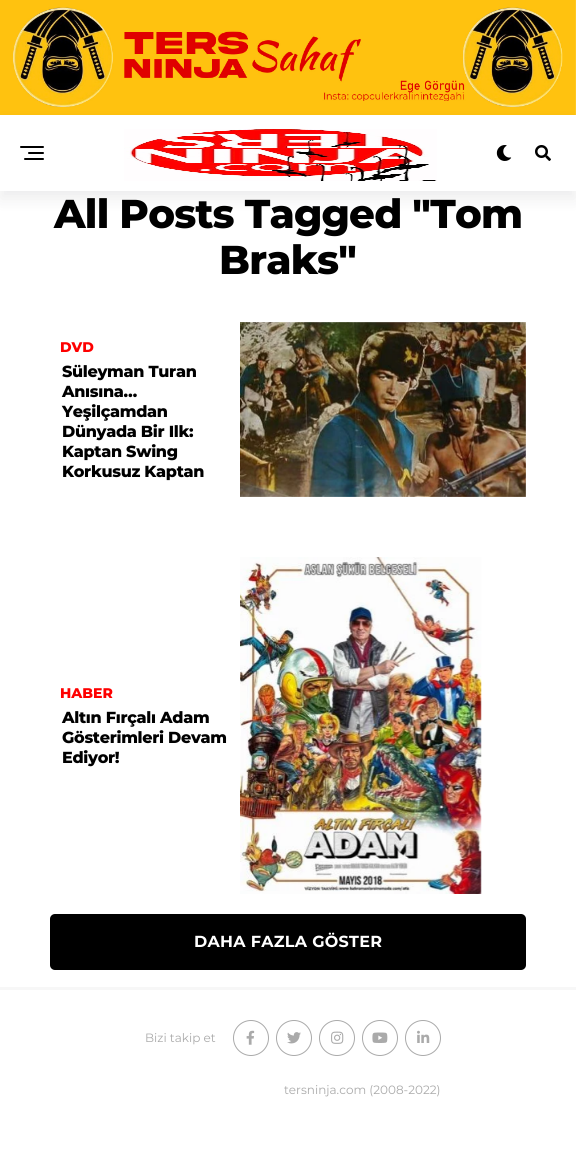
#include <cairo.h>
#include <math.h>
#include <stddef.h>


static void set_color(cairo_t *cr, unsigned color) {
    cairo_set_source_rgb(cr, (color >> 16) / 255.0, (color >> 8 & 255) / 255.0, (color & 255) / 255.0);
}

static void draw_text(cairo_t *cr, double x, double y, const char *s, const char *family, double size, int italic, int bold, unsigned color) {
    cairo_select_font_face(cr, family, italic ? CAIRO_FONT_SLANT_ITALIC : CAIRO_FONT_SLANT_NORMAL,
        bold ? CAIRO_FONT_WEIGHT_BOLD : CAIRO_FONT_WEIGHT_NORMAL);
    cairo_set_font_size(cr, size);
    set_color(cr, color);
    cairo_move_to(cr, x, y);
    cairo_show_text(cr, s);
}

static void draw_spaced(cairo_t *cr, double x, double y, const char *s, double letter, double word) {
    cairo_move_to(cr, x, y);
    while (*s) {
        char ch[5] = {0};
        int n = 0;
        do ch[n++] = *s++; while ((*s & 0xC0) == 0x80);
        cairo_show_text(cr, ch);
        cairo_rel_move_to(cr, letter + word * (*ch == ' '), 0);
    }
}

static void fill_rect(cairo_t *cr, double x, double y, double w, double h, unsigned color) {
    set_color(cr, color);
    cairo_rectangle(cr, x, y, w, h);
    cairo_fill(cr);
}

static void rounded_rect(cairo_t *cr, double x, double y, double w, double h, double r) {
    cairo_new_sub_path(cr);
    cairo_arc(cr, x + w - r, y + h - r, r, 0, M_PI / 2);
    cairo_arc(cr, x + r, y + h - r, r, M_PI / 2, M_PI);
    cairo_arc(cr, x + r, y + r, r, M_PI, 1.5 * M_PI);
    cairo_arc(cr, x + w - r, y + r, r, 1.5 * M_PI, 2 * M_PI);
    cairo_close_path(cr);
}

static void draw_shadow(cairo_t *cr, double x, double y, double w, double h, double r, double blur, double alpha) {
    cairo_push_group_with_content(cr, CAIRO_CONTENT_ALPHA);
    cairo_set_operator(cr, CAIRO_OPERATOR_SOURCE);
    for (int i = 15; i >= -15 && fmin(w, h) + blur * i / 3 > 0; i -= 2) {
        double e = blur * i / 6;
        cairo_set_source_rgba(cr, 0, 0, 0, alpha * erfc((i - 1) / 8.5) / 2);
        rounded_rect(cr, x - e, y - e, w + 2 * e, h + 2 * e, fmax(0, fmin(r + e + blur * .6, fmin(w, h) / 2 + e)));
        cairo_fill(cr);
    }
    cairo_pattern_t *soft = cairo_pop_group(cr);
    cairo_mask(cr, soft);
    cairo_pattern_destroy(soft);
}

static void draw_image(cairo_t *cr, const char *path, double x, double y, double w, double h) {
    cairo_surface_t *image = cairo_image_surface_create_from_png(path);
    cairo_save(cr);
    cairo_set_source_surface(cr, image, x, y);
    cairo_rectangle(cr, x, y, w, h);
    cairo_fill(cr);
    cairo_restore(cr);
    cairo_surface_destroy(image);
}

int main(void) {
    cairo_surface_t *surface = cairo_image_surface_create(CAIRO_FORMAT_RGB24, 576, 1150);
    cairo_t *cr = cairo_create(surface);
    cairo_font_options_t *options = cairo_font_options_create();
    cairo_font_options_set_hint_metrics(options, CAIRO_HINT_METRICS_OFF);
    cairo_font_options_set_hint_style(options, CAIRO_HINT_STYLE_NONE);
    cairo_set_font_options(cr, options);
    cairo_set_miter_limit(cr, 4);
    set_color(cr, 0xFFFFFF);
    cairo_paint(cr);
    draw_image(cr, "assets/img1.png", 0, 0, 576, 115);
    set_color(cr, 0x15151E);
    draw_shadow(cr, 0, 123, 576, 76, 0, 8, 0.08);
    fill_rect(cr, 0, 115, 576, 76, 0xFFFFFF);
    set_color(cr, 0x000000);
    rounded_rect(cr, 20, 146, 24, 2, 1);
    cairo_fill(cr);
    rounded_rect(cr, 28, 152, 16, 2, 1);
    cairo_fill(cr);
    rounded_rect(cr, 24, 158, 20, 2, 1);
    cairo_fill(cr);
    draw_image(cr, "assets/img2.png", 124, 129, 313, 52);
    draw_image(cr, "assets/img3.png", 496, 145, 16, 16);
    draw_image(cr, "assets/img4.png", 535, 145, 16, 16);
    cairo_select_font_face(cr, "Montserrat ExtraBold", CAIRO_FONT_SLANT_NORMAL, CAIRO_FONT_WEIGHT_NORMAL);
    cairo_set_font_size(cr, 40.25);
    draw_spaced(cr, 54, 228, "All Posts Tagged \"Tom", -0.8, 0);
    draw_spaced(cr, 219, 274, "Braks\"", -0.8, 0);
    draw_text(cr, 60, 352, "DVD", "Montserrat ExtraBold", 14, 0, 0, 0xFE0000);
    cairo_set_font_size(cr, 16);
    set_color(cr, 0x000000);
    draw_spaced(cr, 62, 377, "Süleyman Turan", -0.3, 0);
    draw_spaced(cr, 62, 397, "Anısına…", -0.3, 0);
    draw_spaced(cr, 62, 417, "Yeşilçamdan", -0.3, 0);
    draw_spaced(cr, 62, 437, "Dünyada Bir Ilk:", -0.3, 0);
    draw_spaced(cr, 62, 457, "Kaptan Swing", -0.3, 0);
    draw_spaced(cr, 62, 477, "Korkusuz Kaptan", -0.3, 0);
    draw_image(cr, "assets/img5.png", 240, 322, 286, 175);
    draw_text(cr, 60, 698, "HABER", "Montserrat ExtraBold", 14, 0, 0, 0xFE0000);
    cairo_set_font_size(cr, 16);
    set_color(cr, 0x000000);
    draw_spaced(cr, 62, 723, "Altın Fırçalı Adam", -0.3, 0);
    draw_spaced(cr, 62, 743, "Gösterimleri Devam", -0.3, 0);
    draw_image(cr, "assets/img6.png", 240, 557, 242, 337);
    fill_rect(cr, 240, 726, 1, 10, 0xFFFFFF);
    set_color(cr, 0x000000);
    draw_spaced(cr, 62, 763, "Ediyor!", -0.3, 0);
    rounded_rect(cr, 50, 914, 476, 56, 5);
    cairo_fill(cr);
    cairo_select_font_face(cr, "Montserrat", CAIRO_FONT_SLANT_NORMAL, CAIRO_FONT_WEIGHT_BOLD);
    set_color(cr, 0xFFFFFF);
    draw_spaced(cr, 194, 947, "DAHA FAZLA GÖSTER", 0.3, 0);
    fill_rect(cr, 0, 987, 576, 3, 0xF7F7F7);
    draw_text(cr, 145, 1042, "Bizi takip et", "Montserrat", 12, 0, 0, 0xAAAAAA);
    cairo_new_path(cr);
    cairo_arc(cr, 251, 1038, 17.5, 0, 2 * M_PI);
    cairo_set_line_width(cr, 1);
    cairo_stroke(cr);
    draw_image(cr, "assets/img7.png", 246, 1030, 9, 15);
    cairo_arc(cr, 294, 1038, 17.5, 0, 2 * M_PI);
    cairo_stroke(cr);
    draw_image(cr, "assets/img8.png", 287, 1032, 14, 12);
    cairo_arc(cr, 337, 1038, 17.5, 0, 2 * M_PI);
    cairo_stroke(cr);
    draw_image(cr, "assets/img9.png", 331, 1031, 13, 13);
    cairo_arc(cr, 380, 1038, 17.5, 0, 2 * M_PI);
    cairo_stroke(cr);
    draw_image(cr, "assets/img10.png", 372, 1032, 16, 11);
    cairo_arc(cr, 423, 1038, 17.5, 0, 2 * M_PI);
    cairo_stroke(cr);
    draw_image(cr, "assets/img11.png", 417, 1030, 13, 13);
    draw_text(cr, 284, 1094, "tersninja.com (2008-2022)", "Montserrat", 12, 0, 0, 0xAAAAAA);
    cairo_surface_write_to_png(surface, "output.png");
    cairo_font_options_destroy(options);
    cairo_destroy(cr);
    cairo_surface_destroy(surface);
    return 0;
}
